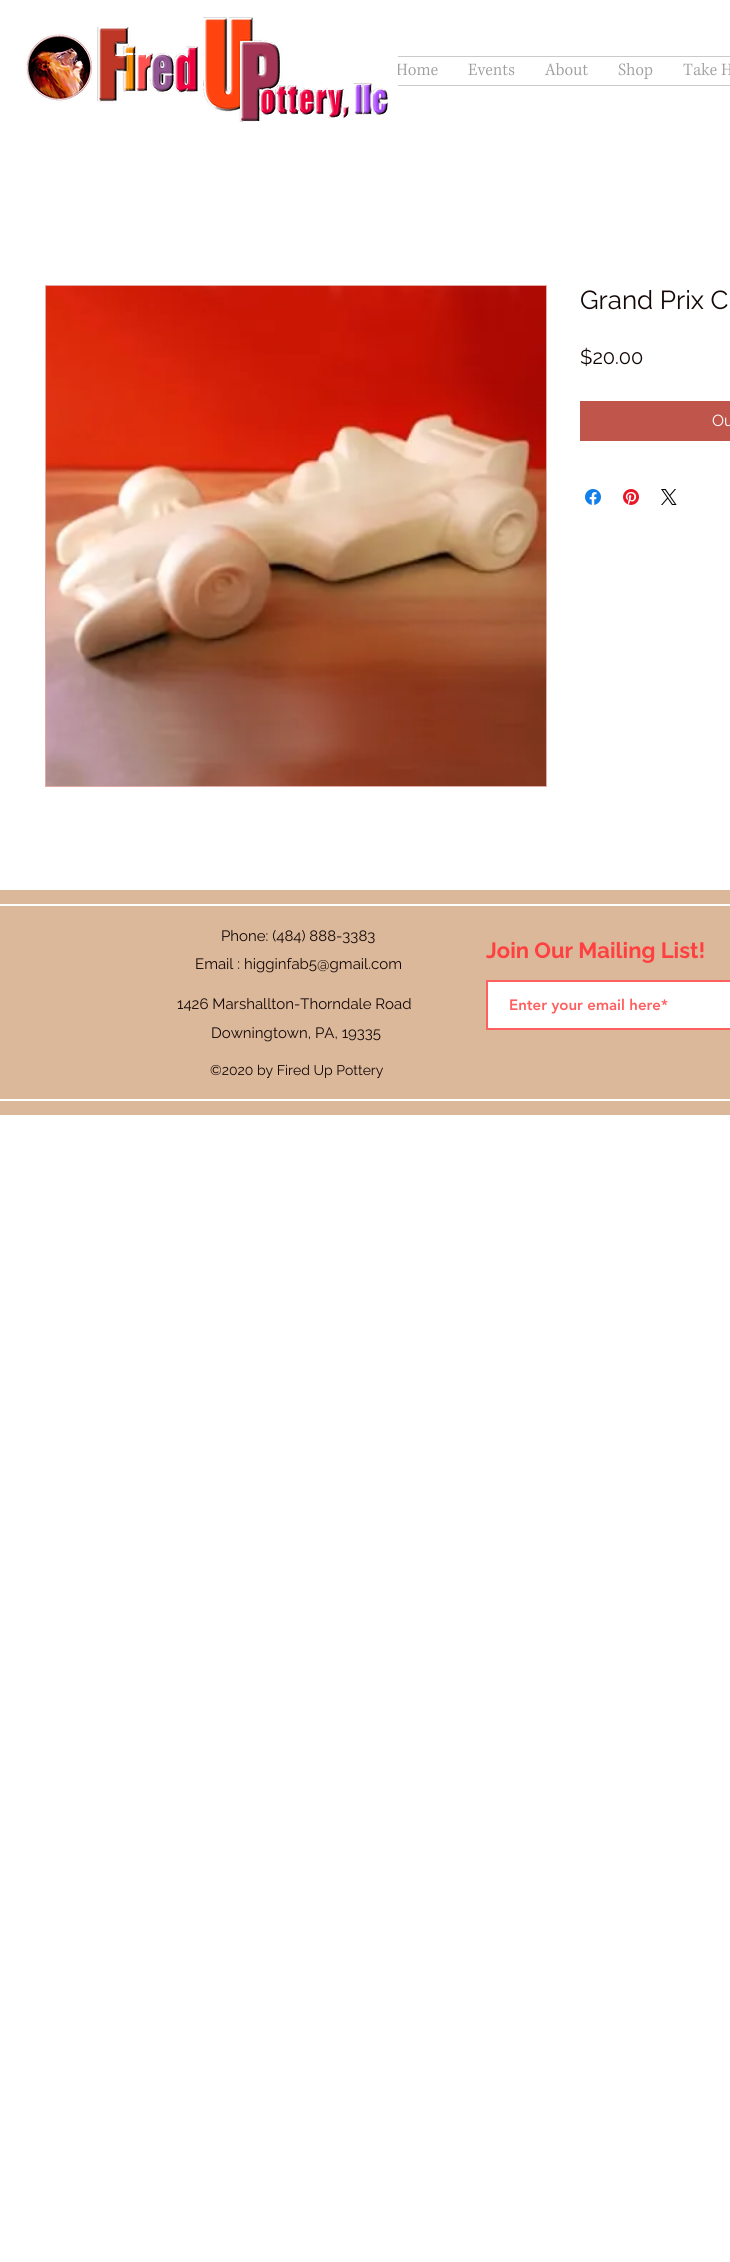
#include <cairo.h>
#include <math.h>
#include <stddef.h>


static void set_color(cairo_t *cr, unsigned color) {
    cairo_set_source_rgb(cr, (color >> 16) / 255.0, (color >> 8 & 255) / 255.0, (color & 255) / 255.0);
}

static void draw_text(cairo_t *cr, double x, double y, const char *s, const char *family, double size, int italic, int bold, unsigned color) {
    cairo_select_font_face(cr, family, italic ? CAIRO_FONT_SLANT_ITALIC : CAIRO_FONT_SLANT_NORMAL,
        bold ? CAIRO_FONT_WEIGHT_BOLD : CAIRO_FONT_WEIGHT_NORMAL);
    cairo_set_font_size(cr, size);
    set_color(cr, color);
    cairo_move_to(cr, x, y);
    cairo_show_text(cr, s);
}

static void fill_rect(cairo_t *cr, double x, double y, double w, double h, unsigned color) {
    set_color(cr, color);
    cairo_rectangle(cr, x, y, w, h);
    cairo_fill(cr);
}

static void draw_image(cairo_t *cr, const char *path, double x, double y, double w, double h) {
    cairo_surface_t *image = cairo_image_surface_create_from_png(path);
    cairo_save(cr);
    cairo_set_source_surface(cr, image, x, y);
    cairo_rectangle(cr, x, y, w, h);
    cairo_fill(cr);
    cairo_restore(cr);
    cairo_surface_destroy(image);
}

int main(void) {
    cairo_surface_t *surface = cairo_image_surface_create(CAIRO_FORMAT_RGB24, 730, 2262);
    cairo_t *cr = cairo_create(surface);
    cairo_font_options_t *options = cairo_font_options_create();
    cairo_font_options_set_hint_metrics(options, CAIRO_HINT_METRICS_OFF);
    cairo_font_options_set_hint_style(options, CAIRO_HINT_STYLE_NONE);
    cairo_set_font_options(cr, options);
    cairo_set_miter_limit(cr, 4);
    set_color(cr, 0xFFFFFF);
    cairo_paint(cr);
    draw_image(cr, "assets/img1.png", 26, 17, 372, 105);
    fill_rect(cr, 398, 56, 332, 1, 0xCACACA);
    fill_rect(cr, 398, 85, 332, 1, 0xCACACA);
    draw_image(cr, "assets/img2.png", 398, 63, 40, 13);
    draw_image(cr, "assets/img3.png", 468, 63, 47, 13);
    draw_image(cr, "assets/img4.png", 544, 63, 44, 13);
    draw_image(cr, "assets/img5.png", 618, 63, 35, 17);
    draw_image(cr, "assets/img6.png", 683, 63, 47, 13);
    cairo_rectangle(cr, 45.5, 285.5, 501, 501);
    set_color(cr, 0xE0AAA6);
    cairo_set_line_width(cr, 1);
    cairo_stroke(cr);
    draw_image(cr, "assets/img7.png", 46, 286, 500, 500);
    draw_text(cr, 580, 309, "Grand Prix C", "Raleway", 26, 0, 0, 0x140807);
    draw_text(cr, 580, 364, "$20.00", "Raleway", 20, 0, 0, 0x140807);
    fill_rect(cr, 580, 401, 150, 40, 0xC0554C);
    draw_text(cr, 712, 426, "Ou", "Raleway", 16, 0, 0, 0xFFFFFF);
    draw_image(cr, "assets/img8.png", 585, 489, 16, 16);
    draw_image(cr, "assets/img9.png", 623, 489, 16, 16);
    draw_image(cr, "assets/img10.png", 661, 489, 16, 16);
    fill_rect(cr, 0, 890, 730, 225, 0xDBB89A);
    fill_rect(cr, 0, 904, 730, 2, 0xFFFFFF);
    fill_rect(cr, 0, 1099, 730, 2, 0xFFFFFF);
    draw_text(cr, 221, 941, "Phone: (484) 888-3383", "Raleway", 15, 0, 0, 0x140807);
    draw_text(cr, 195, 969, "Email : higginfab5@gmail.com", "Raleway", 15, 0, 0, 0x140807);
    draw_text(cr, 486, 958, "Join Our Mailing List!", "Raleway", 22, 0, 1, 0xFF4040);
    draw_text(cr, 177, 1009, "1426 Marshallton-Thorndale Road", "Raleway", 15, 0, 0, 0x140807);
    draw_text(cr, 211, 1038, "Downingtown, PA, 19335", "Raleway", 15, 0, 0, 0x140807);
    set_color(cr, 0xFFFFFF);
    cairo_rectangle(cr, 487, 981, 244, 48);
    cairo_fill_preserve(cr);
    set_color(cr, 0xFE6060);
    cairo_set_line_width(cr, 2);
    cairo_stroke(cr);
    draw_text(cr, 509, 1010, "Enter your email here*", "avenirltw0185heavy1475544 Black", 15, 0, 0, 0xFE6060);
    draw_text(cr, 210, 1075, "©2020 by Fired Up Pottery", "Raleway", 14, 0, 0, 0x140807);
    cairo_surface_write_to_png(surface, "output.png");
    cairo_font_options_destroy(options);
    cairo_destroy(cr);
    cairo_surface_destroy(surface);
    return 0;
}
